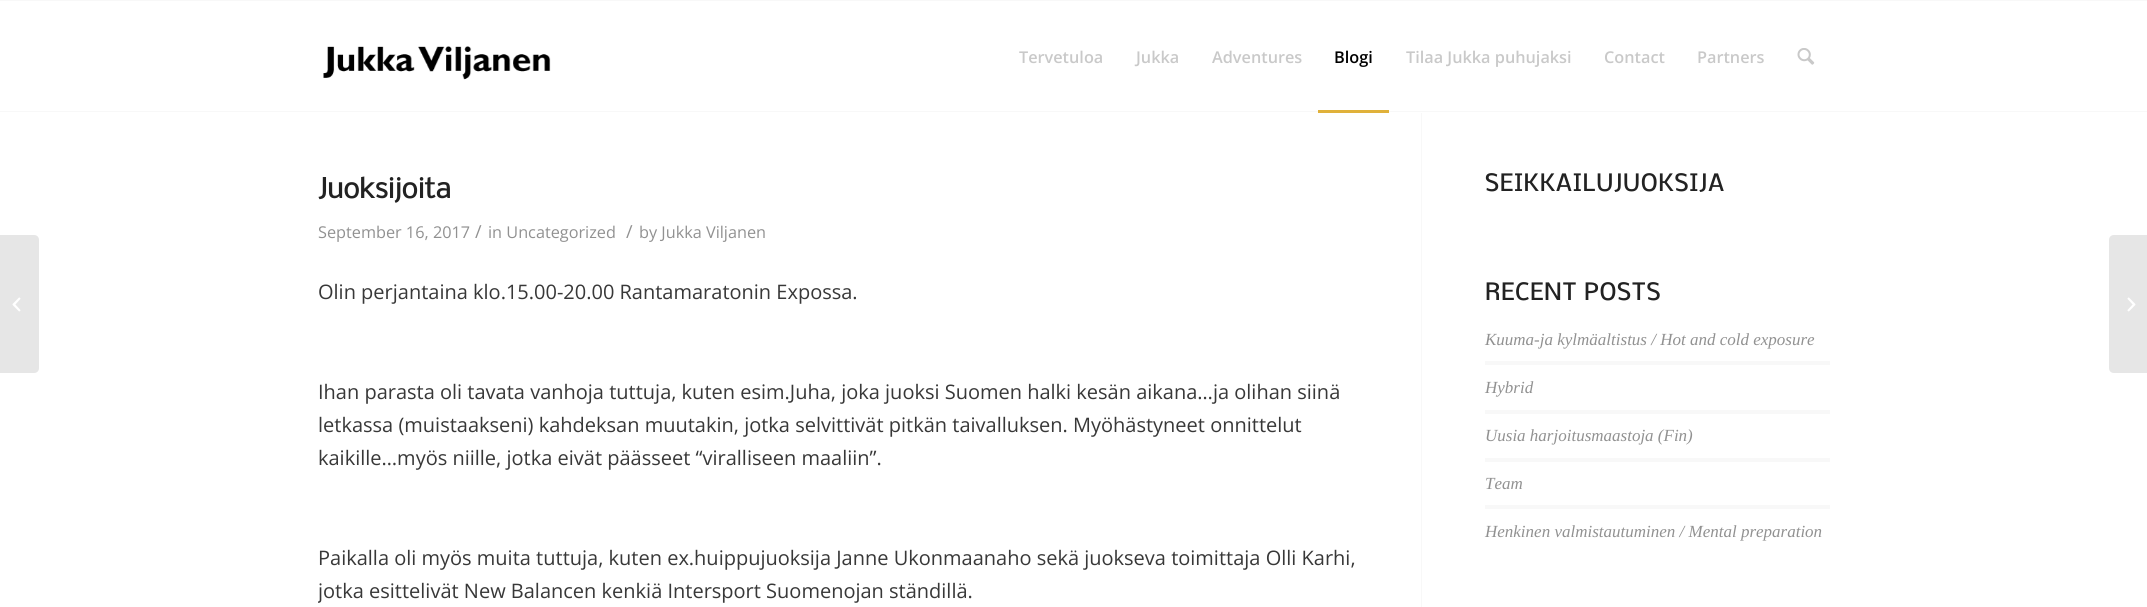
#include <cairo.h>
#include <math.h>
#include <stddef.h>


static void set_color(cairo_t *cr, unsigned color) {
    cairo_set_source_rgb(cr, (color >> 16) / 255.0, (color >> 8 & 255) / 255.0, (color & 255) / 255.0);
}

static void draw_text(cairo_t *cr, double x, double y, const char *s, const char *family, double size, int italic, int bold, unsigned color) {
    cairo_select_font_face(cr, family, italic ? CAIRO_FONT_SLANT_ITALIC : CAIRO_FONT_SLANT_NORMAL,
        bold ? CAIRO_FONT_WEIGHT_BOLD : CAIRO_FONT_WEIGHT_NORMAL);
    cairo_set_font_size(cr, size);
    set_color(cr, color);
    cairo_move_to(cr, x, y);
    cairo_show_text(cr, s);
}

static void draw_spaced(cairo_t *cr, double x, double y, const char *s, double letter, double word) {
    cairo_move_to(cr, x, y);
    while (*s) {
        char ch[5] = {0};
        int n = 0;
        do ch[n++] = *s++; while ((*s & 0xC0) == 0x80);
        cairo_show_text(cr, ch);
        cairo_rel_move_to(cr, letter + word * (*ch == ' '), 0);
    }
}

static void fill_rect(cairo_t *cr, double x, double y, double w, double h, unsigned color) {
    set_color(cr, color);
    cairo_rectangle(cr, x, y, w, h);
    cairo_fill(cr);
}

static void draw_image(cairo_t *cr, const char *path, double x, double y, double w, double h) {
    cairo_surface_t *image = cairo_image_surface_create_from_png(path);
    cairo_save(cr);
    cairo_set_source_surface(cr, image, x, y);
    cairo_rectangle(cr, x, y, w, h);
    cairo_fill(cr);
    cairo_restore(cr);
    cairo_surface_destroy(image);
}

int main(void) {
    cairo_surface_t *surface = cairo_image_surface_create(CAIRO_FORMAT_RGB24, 2147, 607);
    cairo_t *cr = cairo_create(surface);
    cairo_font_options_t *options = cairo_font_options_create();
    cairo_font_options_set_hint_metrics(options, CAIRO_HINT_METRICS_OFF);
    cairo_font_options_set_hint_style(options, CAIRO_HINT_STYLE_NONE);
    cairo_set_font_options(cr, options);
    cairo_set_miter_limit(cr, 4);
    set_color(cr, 0xFFFFFF);
    cairo_paint(cr);
    fill_rect(cr, 0, 0, 2147, 1, 0xF8F8F8);
    fill_rect(cr, 1421, 111, 1, 496, 0xF8F8F8);
    fill_rect(cr, 1421, 111, 1, 2, 0xFFFFFF);
    fill_rect(cr, 0, 111, 2147, 1, 0xF8F8F8);
    draw_image(cr, "assets/img1.png", 323, 46, 228, 34);
    draw_text(cr, 1019, 63, "Tervetuloa", "Open Sans SemiBold", 16.25, 0, 0, 0xC9C9C9);
    draw_text(cr, 1136, 63, "Jukka", "Open Sans SemiBold", 16.25, 0, 0, 0xC9C9C9);
    draw_text(cr, 1212, 63, "Adventures", "Open Sans SemiBold", 16.25, 0, 0, 0xC9C9C9);
    draw_text(cr, 1334, 63, "Blogi", "Open Sans SemiBold", 16.25, 0, 0, 0x000000);
    fill_rect(cr, 1318, 110, 71, 3, 0xE0B13A);
    draw_text(cr, 1406, 63, "Tilaa Jukka puhujaksi", "Open Sans SemiBold", 16.25, 0, 0, 0xC9C9C9);
    draw_text(cr, 1604, 63, "Contact", "Open Sans SemiBold", 16.25, 0, 0, 0xC9C9C9);
    draw_text(cr, 1697, 63, "Partners", "Open Sans SemiBold", 16.25, 0, 0, 0xC9C9C9);
    draw_image(cr, "assets/img2.png", 1797, 48, 18, 17);
    set_color(cr, 0xE6E6E6);
    cairo_new_path(cr);
    cairo_move_to(cr, 0, 235);
    cairo_line_to(cr, 34, 235);
    cairo_curve_to(cr, 37, 235, 39, 237, 39, 240);
    cairo_line_to(cr, 39, 368);
    cairo_curve_to(cr, 39, 371, 37, 373, 34, 373);
    cairo_line_to(cr, 0, 373);
    cairo_close_path(cr);
    cairo_fill(cr);
    draw_image(cr, "assets/img3.png", 12, 297, 9, 15);
    draw_text(cr, 318, 198, "Juoksijoita", "Nobile", 26.25, 0, 1, 0x222222);
    draw_text(cr, 318, 238, "September 16, 2017", "Open Sans", 16.25, 0, 0, 0x919191);
    draw_text(cr, 475, 238, "/", "Open Sans", 18, 0, 0, 0x919191);
    draw_text(cr, 488, 238, "in Uncategorized", "Open Sans", 16.25, 0, 0, 0x919191);
    draw_text(cr, 626, 238, "/", "Open Sans", 18, 0, 0, 0x919191);
    draw_text(cr, 639, 238, "by Jukka Viljanen", "Open Sans", 16.25, 0, 0, 0x919191);
    draw_text(cr, 318, 299, "Olin perjantaina klo.15.00-20.00 Rantamaratonin Expossa.", "Open Sans", 20, 0, 0, 0x383838);
    draw_text(cr, 318, 399, "Ihan parasta oli tavata vanhoja tuttuja, kuten esim.Juha, joka juoksi Suomen halki kesän aikana…ja olihan siinä", "Open Sans", 20, 0, 0, 0x383838);
    draw_text(cr, 318, 432, "letkassa (muistaakseni) kahdeksan muutakin, jotka selvittivät pitkän taivalluksen. Myöhästyneet onnittelut", "Open Sans", 20, 0, 0, 0x383838);
    draw_text(cr, 318, 465, "kaikille…myös niille, jotka eivät päässeet “viralliseen maaliin”.", "Open Sans", 20, 0, 0, 0x383838);
    draw_text(cr, 318, 565, "Paikalla oli myös muita tuttuja, kuten ex.huippujuoksija Janne Ukonmaanaho sekä juokseva toimittaja Olli Karhi,", "Open Sans", 20, 0, 0, 0x383838);
    cairo_save(cr);
    cairo_rectangle(cr, 318, 174, 1103, 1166);
    cairo_clip(cr);
    draw_text(cr, 318, 598, "jotka esittelivät New Balancen kenkiä Intersport Suomenojan ständillä.", "Open Sans", 20, 0, 0, 0x383838);
    cairo_restore(cr);
    cairo_select_font_face(cr, "Nobile", CAIRO_FONT_SLANT_NORMAL, CAIRO_FONT_WEIGHT_BOLD);
    cairo_set_font_size(cr, 22);
    set_color(cr, 0x222222);
    draw_spaced(cr, 1485, 191, "SEIKKAILUJUOKSIJA", 1.25, 0);
    draw_spaced(cr, 1485, 300, "RECENT POSTS", 1.25, 0);
    draw_text(cr, 1485, 345, "Kuuma-ja kylmäaltistus / Hot and cold exposure", "Liberation Serif", 17, 1, 0, 0x919191);
    fill_rect(cr, 1485, 361, 345, 4, 0xF8F8F8);
    draw_text(cr, 1485, 393, "Hybrid", "Liberation Serif", 17, 1, 0, 0x919191);
    fill_rect(cr, 1485, 410, 345, 4, 0xF8F8F8);
    draw_text(cr, 1485, 441, "Uusia harjoitusmaastoja (Fin)", "Liberation Serif", 17, 1, 0, 0x919191);
    fill_rect(cr, 1485, 458, 345, 4, 0xF8F8F8);
    draw_text(cr, 1485, 489, "Team", "Liberation Serif", 17, 1, 0, 0x919191);
    fill_rect(cr, 1485, 505, 345, 4, 0xF8F8F8);
    draw_text(cr, 1485, 537, "Henkinen valmistautuminen / Mental preparation", "Liberation Serif", 17, 1, 0, 0x919191);
    set_color(cr, 0xE6E6E6);
    cairo_new_path(cr);
    cairo_move_to(cr, 2114, 235);
    cairo_line_to(cr, 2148, 235);
    cairo_line_to(cr, 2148, 373);
    cairo_line_to(cr, 2114, 373);
    cairo_curve_to(cr, 2111, 373, 2109, 371, 2109, 368);
    cairo_line_to(cr, 2109, 240);
    cairo_curve_to(cr, 2109, 237, 2111, 235, 2114, 235);
    cairo_close_path(cr);
    cairo_fill(cr);
    draw_image(cr, "assets/img4.png", 2127, 297, 9, 15);
    cairo_surface_write_to_png(surface, "output.png");
    cairo_font_options_destroy(options);
    cairo_destroy(cr);
    cairo_surface_destroy(surface);
    return 0;
}
